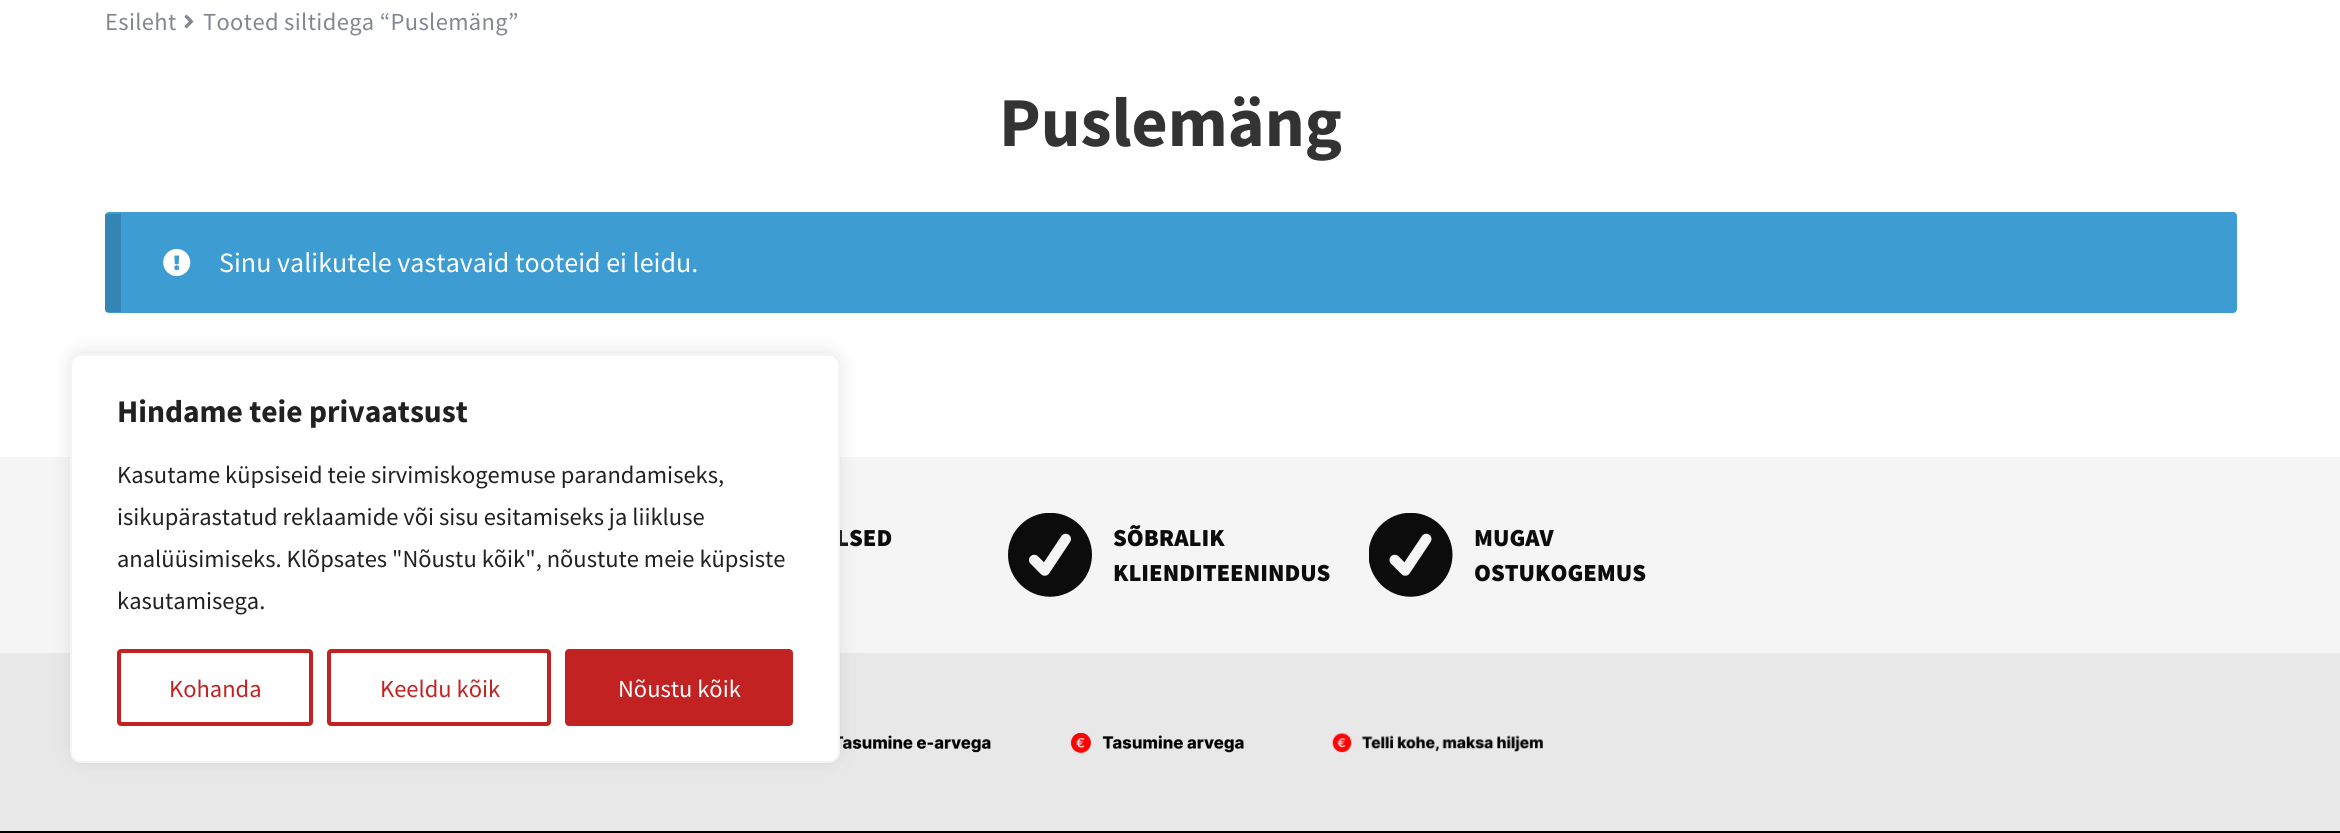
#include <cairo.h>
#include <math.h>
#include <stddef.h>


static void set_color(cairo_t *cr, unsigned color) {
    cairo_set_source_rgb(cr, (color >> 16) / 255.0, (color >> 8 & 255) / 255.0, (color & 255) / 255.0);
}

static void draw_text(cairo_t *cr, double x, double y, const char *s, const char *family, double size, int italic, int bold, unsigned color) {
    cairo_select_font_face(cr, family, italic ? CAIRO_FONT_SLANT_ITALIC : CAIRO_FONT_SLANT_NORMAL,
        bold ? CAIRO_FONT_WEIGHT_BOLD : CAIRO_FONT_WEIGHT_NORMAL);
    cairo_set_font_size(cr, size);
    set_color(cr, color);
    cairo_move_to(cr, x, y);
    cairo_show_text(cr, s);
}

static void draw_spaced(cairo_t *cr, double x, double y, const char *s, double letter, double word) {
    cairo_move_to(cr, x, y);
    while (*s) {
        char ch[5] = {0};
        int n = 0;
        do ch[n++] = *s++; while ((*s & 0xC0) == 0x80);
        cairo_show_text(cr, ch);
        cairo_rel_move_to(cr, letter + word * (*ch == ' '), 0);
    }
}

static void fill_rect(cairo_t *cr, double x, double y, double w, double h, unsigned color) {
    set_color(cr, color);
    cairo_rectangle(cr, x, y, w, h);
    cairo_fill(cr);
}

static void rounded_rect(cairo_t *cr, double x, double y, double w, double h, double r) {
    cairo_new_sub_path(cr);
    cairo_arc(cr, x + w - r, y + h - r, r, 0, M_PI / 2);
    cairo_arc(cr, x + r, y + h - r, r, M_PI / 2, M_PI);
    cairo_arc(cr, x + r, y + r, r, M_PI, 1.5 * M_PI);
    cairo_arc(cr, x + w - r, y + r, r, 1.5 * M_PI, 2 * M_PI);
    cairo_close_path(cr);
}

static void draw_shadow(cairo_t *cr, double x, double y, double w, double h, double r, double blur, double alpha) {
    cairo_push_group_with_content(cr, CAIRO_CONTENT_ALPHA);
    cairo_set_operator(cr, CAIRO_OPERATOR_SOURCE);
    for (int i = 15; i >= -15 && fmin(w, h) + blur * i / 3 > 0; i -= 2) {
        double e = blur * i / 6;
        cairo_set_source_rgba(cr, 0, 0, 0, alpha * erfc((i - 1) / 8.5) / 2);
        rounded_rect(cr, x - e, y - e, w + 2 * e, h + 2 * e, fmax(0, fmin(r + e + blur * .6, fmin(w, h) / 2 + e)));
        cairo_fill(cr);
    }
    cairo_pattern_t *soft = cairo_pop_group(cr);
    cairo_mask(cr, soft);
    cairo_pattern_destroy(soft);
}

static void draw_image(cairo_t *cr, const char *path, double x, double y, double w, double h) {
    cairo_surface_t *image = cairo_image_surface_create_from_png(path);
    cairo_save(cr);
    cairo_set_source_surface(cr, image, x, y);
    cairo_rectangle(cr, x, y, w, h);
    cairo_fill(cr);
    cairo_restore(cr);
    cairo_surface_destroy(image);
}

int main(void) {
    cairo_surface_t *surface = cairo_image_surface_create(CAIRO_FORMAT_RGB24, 2340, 833);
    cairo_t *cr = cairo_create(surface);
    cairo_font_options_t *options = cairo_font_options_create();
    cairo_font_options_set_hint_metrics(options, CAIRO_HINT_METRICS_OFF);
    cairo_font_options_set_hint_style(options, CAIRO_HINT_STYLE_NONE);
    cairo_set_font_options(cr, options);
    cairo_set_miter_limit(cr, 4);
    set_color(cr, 0xFFFFFF);
    cairo_paint(cr);
    cairo_select_font_face(cr, "Source Sans Pro", CAIRO_FONT_SLANT_NORMAL, CAIRO_FONT_WEIGHT_NORMAL);
    cairo_set_font_size(cr, 24.5);
    set_color(cr, 0x838791);
    draw_spaced(cr, 105, 30, "Esileht", 0.35, 0);
    draw_image(cr, "assets/img1.png", 184, 14, 10, 15);
    draw_spaced(cr, 203, 30, "Tooted siltidega “Puslemäng”", 0.35, 0);
    draw_text(cr, 999, 146, "Puslemäng", "Source Sans Pro", 70, 0, 1, 0x333333);
    set_color(cr, 0x3D9CD2);
    rounded_rect(cr, 105, 212, 2132, 101, 4);
    cairo_fill(cr);
    cairo_set_source_rgba(cr, 0, 0, 0, 0.15);
    cairo_rectangle(cr, 105, 214, 16, 98);
    cairo_fill(cr);
    draw_image(cr, "assets/img2.png", 163, 248, 28, 29);
    draw_text(cr, 219, 272, "Sinu valikutele vastavaid tooteid ei leidu.", "Source Sans Pro", 28, 0, 0, 0xFFFFFF);
    fill_rect(cr, 0, 457, 2340, 196, 0xF5F5F5);
    draw_text(cr, 836, 546, "LSED", "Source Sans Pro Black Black", 24.5, 0, 0, 0x0B0C0B);
    draw_image(cr, "assets/img3.png", 1008, 513, 84, 84);
    draw_text(cr, 1113, 546, "SÕBRALIK", "Source Sans Pro Black Black", 24.5, 0, 0, 0x0B0C0B);
    draw_text(cr, 1113, 581, "KLIENDITEENINDUS", "Source Sans Pro Black Black", 24.5, 0, 0, 0x0B0C0B);
    draw_image(cr, "assets/img4.png", 1369, 513, 84, 84);
    draw_text(cr, 1474, 546, "MUGAV", "Source Sans Pro Black Black", 24.5, 0, 0, 0x0B0C0B);
    draw_text(cr, 1474, 581, "OSTUKOGEMUS", "Source Sans Pro Black Black", 24.5, 0, 0, 0x0B0C0B);
    fill_rect(cr, 0, 653, 2340, 178, 0xE8E8E8);
    draw_image(cr, "assets/img5.png", 840, 735, 151, 18);
    draw_image(cr, "assets/img6.png", 1070, 732, 174, 21);
    draw_image(cr, "assets/img7.png", 1332, 732, 211, 21);
    fill_rect(cr, 0, 831, 2340, 2, 0x000000);
    set_color(cr, 0xACABAB);
    draw_shadow(cr, 70, 352, 770, 409, 11, 9, 0.3);
    set_color(cr, 0xFFFFFF);
    rounded_rect(cr, 71, 355, 768, 407, 10);
    cairo_fill_preserve(cr);
    set_color(cr, 0xF4F4F4);
    cairo_stroke(cr);
    draw_text(cr, 117, 422, "Hindame teie privaatsust", "Source Sans Pro", 31.5, 0, 1, 0x212121);
    draw_text(cr, 117, 483, "Kasutame küpsiseid teie sirvimiskogemuse parandamiseks,", "Source Sans Pro", 24.5, 0, 0, 0x212121);
    draw_text(cr, 117, 525, "isikupärastatud reklaamide või sisu esitamiseks ja liikluse", "Source Sans Pro", 24.5, 0, 0, 0x212121);
    draw_text(cr, 117, 567, "analüüsimiseks. Klõpsates \"Nõustu kõik\", nõustute meie küpsiste", "Source Sans Pro", 24.5, 0, 0, 0x212121);
    draw_text(cr, 117, 609, "kasutamisega.", "Source Sans Pro", 24.5, 0, 0, 0x212121);
    rounded_rect(cr, 119, 651, 192, 73, 2);
    set_color(cr, 0xC32222);
    cairo_set_line_width(cr, 4);
    cairo_stroke(cr);
    draw_text(cr, 169, 697, "Kohanda", "Source Sans Pro", 24.5, 0, 0, 0xC32222);
    rounded_rect(cr, 329, 651, 220, 73, 2);
    cairo_stroke(cr);
    draw_text(cr, 380, 697, "Keeldu kõik", "Source Sans Pro", 24.5, 0, 0, 0xC32222);
    rounded_rect(cr, 567, 651, 224, 73, 2);
    cairo_fill_preserve(cr);
    cairo_stroke(cr);
    draw_text(cr, 618, 697, "Nõustu kõik", "Source Sans Pro", 24.5, 0, 0, 0xFFFFFF);
    cairo_surface_write_to_png(surface, "output.png");
    cairo_font_options_destroy(options);
    cairo_destroy(cr);
    cairo_surface_destroy(surface);
    return 0;
}
